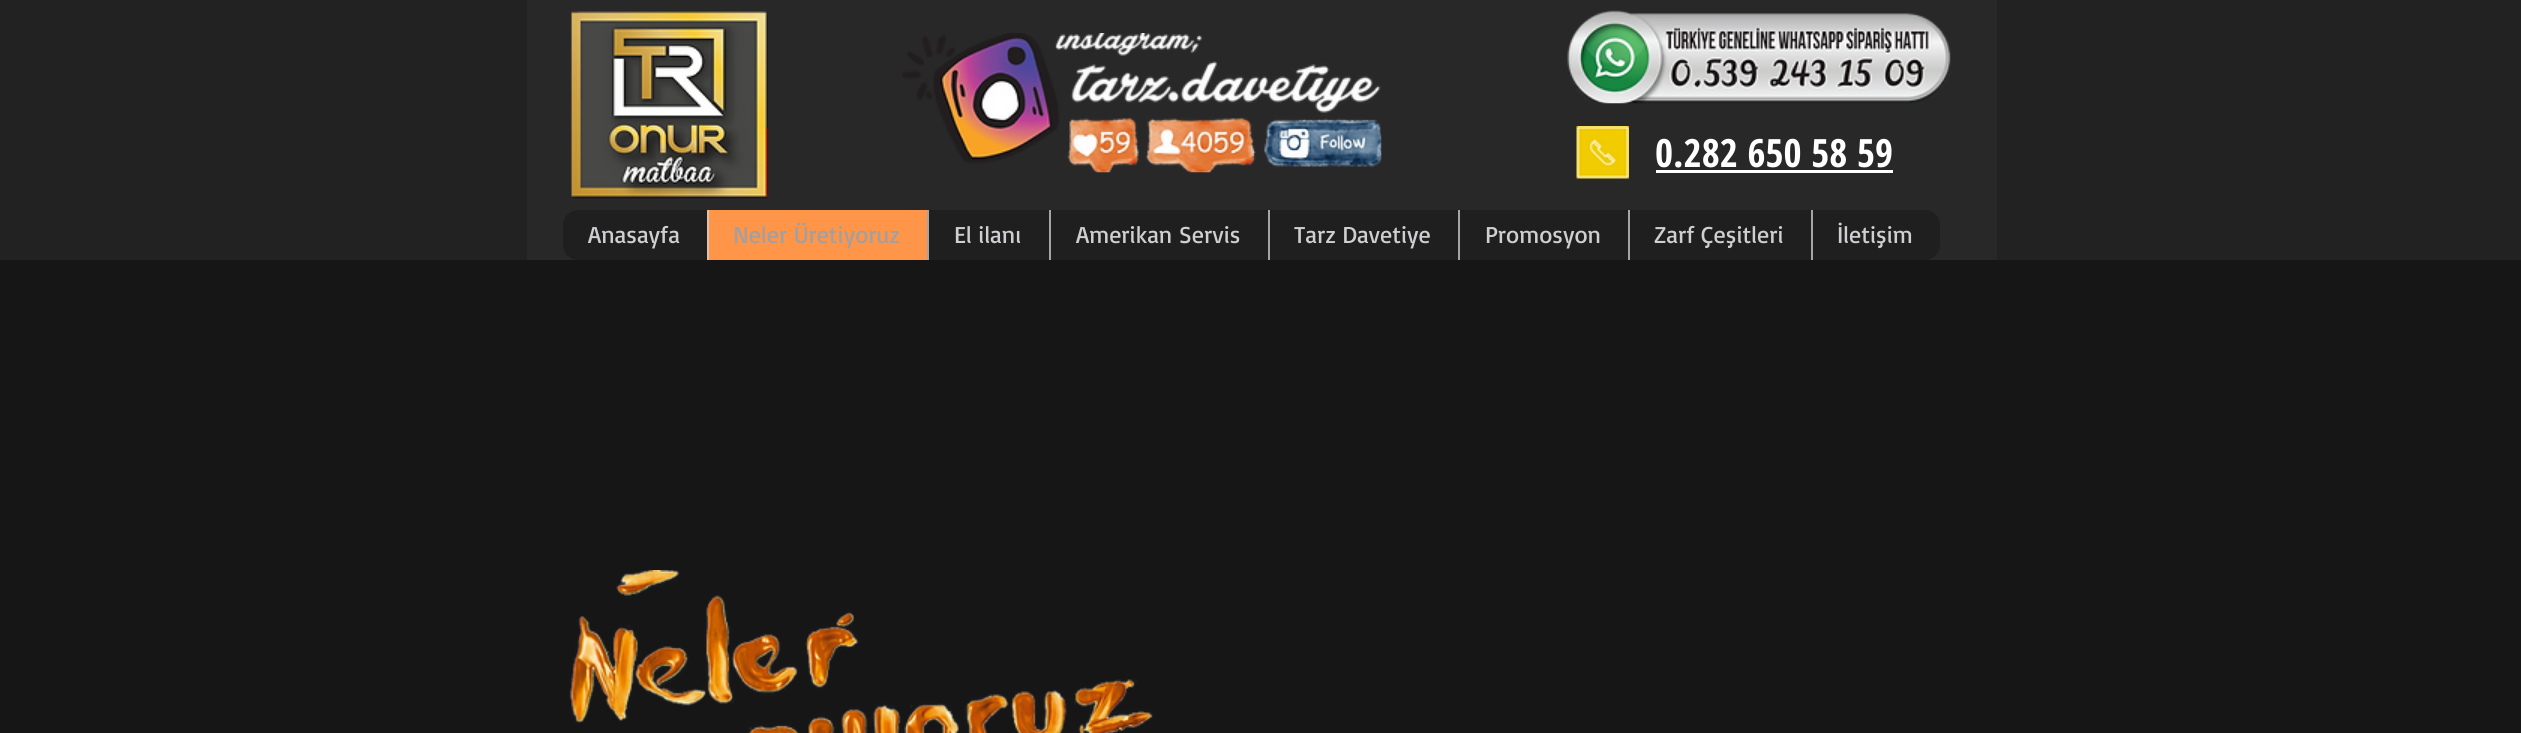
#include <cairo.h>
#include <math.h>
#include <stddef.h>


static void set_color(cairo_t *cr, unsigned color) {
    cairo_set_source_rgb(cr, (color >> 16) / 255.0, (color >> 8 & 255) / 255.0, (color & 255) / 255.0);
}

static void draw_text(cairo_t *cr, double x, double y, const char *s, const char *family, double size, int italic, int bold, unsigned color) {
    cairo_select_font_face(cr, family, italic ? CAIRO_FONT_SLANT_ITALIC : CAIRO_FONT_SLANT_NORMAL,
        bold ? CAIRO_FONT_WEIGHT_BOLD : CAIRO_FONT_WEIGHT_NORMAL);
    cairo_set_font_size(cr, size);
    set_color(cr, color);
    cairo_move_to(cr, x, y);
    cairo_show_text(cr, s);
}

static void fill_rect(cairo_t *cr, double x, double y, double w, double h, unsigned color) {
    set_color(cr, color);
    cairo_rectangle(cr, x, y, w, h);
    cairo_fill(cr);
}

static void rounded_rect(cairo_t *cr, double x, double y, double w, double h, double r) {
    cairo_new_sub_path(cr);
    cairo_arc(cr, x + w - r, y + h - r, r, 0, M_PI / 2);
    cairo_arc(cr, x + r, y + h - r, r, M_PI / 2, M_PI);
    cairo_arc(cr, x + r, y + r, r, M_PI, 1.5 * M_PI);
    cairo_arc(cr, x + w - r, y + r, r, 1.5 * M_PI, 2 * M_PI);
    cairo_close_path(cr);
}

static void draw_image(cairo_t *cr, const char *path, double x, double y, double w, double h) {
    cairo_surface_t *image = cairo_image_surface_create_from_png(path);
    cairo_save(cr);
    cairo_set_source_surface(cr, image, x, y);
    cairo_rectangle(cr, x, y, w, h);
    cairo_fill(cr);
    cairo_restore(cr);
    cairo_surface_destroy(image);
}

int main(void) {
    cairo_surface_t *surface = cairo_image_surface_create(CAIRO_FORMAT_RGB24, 2521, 733);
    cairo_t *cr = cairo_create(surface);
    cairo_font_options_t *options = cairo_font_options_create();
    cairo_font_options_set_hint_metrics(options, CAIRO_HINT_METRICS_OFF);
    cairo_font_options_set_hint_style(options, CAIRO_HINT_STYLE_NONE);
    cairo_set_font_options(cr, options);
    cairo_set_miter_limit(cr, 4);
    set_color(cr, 0x161617);
    cairo_paint(cr);
    fill_rect(cr, 0, 0, 2521, 260, 0x232223);
    fill_rect(cr, 527, 0, 1470, 260, 0x292829);
    draw_image(cr, "assets/img1.png", 570, 11, 198, 188);
    draw_image(cr, "assets/img2.png", 902, 33, 480, 140);
    draw_image(cr, "assets/img3.png", 1567, 10, 384, 94);
    draw_image(cr, "assets/img4.png", 1576, 126, 53, 53);
    draw_text(cr, 1655, 167, "0.282 650 58 59", "Open Sans Condensed", 39, 0, 1, 0xFFFFFF);
    fill_rect(cr, 1656, 170, 237, 3, 0xFFFFFF);
    set_color(cr, 0x1F1F20);
    rounded_rect(cr, 563, 210, 1377, 50, 15);
    cairo_fill(cr);
    draw_text(cr, 588, 243, "Anasayfa", "Basic", 24, 0, 0, 0xCFCFD1);
    fill_rect(cr, 709, 210, 218, 50, 0xFF9548);
    fill_rect(cr, 707, 210, 2, 50, 0xDBC1B0);
    draw_text(cr, 733, 243, "Neler Üretiyoruz", "Basic", 24, 0, 0, 0xA0A0A2);
    fill_rect(cr, 927, 210, 2, 50, 0xA5A5A7);
    draw_text(cr, 954, 243, "El ilanı", "Basic", 24, 0, 0, 0xCFCFD1);
    fill_rect(cr, 1049, 210, 2, 50, 0xA5A5A7);
    draw_text(cr, 1076, 243, "Amerikan Servis", "Basic", 24, 0, 0, 0xCFCFD1);
    fill_rect(cr, 1268, 210, 2, 50, 0xA5A5A7);
    draw_text(cr, 1294, 243, "Tarz Davetiye", "Basic", 24, 0, 0, 0xCFCFD1);
    fill_rect(cr, 1458, 210, 2, 50, 0xA5A5A7);
    draw_text(cr, 1485, 243, "Promosyon", "Basic", 24, 0, 0, 0xCFCFD1);
    fill_rect(cr, 1628, 210, 2, 50, 0xA5A5A7);
    draw_text(cr, 1654, 243, "Zarf Çeşitleri", "Basic", 24, 0, 0, 0xCFCFD1);
    fill_rect(cr, 1811, 210, 2, 50, 0xA5A5A7);
    draw_text(cr, 1837, 243, "İletişim", "Basic", 24, 0, 0, 0xCFCFD1);
    draw_image(cr, "assets/img5.png", 569, 570, 584, 163);
    cairo_surface_write_to_png(surface, "output.png");
    cairo_font_options_destroy(options);
    cairo_destroy(cr);
    cairo_surface_destroy(surface);
    return 0;
}
